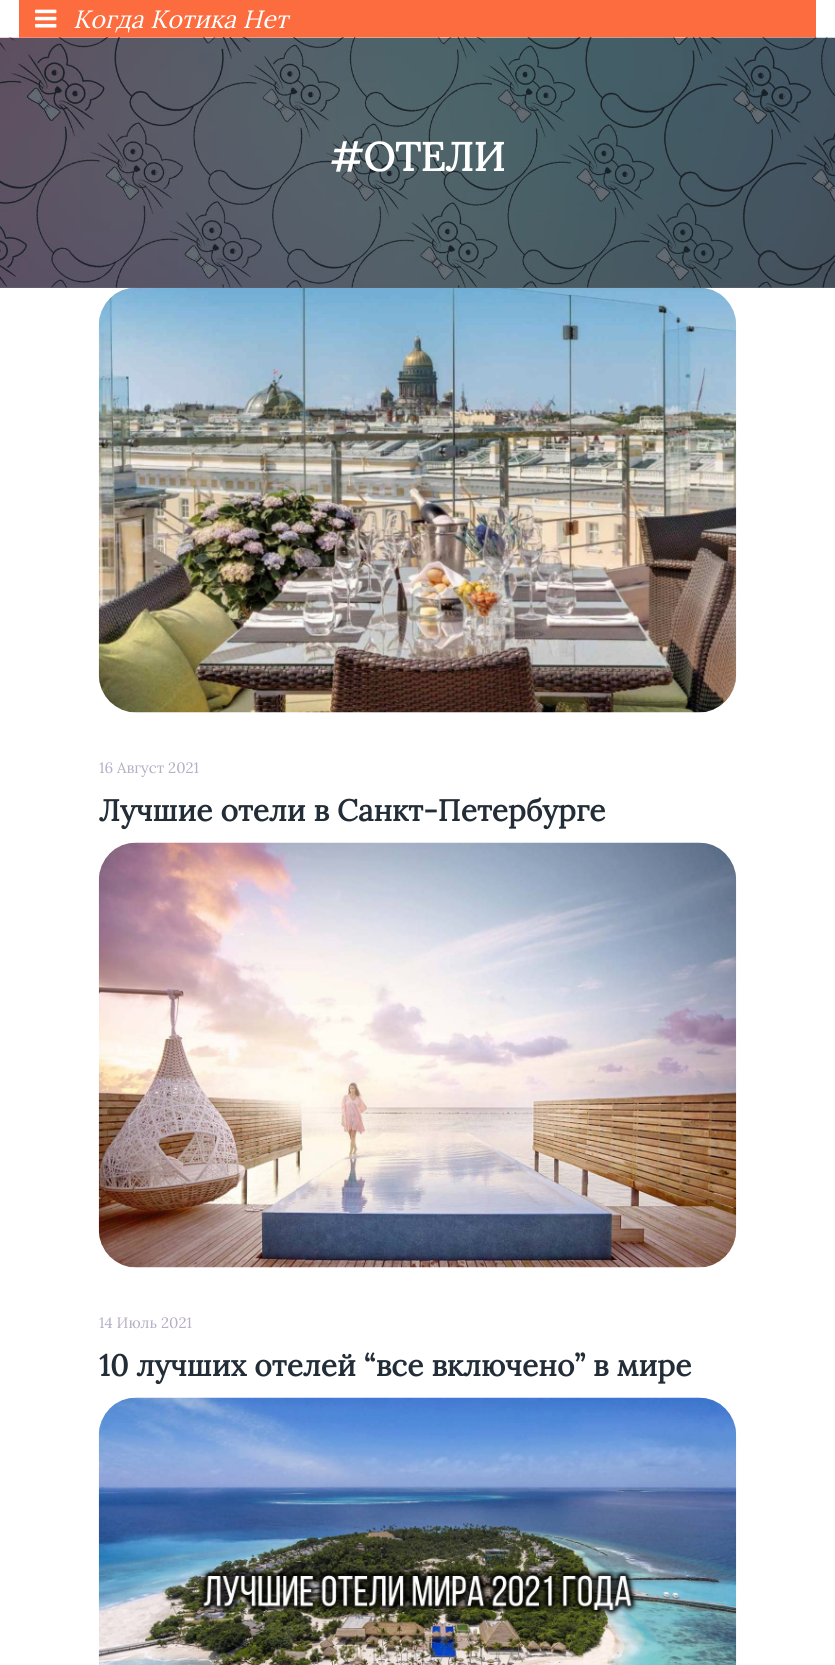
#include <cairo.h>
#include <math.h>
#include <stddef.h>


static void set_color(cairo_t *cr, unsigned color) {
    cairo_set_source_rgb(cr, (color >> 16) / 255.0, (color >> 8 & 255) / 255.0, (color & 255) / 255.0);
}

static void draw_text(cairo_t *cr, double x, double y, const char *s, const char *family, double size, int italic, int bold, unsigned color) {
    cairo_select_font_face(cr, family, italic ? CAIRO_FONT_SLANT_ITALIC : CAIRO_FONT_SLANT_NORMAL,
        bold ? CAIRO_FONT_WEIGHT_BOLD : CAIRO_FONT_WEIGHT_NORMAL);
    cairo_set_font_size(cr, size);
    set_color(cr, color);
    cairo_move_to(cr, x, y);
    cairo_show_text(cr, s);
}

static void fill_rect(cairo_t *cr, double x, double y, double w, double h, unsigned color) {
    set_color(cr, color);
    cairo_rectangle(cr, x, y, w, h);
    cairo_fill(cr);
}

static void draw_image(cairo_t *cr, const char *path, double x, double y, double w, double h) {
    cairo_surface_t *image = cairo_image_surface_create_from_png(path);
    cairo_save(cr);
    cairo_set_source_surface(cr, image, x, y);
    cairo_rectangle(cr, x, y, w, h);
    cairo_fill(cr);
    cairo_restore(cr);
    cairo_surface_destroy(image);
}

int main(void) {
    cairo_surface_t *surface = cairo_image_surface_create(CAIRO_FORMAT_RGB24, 835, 1665);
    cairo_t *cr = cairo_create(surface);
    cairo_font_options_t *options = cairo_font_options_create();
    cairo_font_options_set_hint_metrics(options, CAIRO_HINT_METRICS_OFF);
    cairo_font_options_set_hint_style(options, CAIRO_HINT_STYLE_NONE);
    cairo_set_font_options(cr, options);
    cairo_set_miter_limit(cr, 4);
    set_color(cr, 0xFFFFFF);
    cairo_paint(cr);
    fill_rect(cr, 19, 0, 797, 38, 0xFC6C3F);
    draw_image(cr, "assets/img1.png", 35, 9, 22, 19);
    draw_text(cr, 73, 28, "Когда Котика Нет", "Lora", 25, 1, 0, 0xFFFFFF);
    draw_image(cr, "assets/img3.png", 98, 287, 639, 426);
    draw_image(cr, "assets/img2.png", 0, 37, 835, 251);
    cairo_set_source_rgba(cr, 0.137, 0.176, 0.216, 0.7);
    cairo_rectangle(cr, 0, 38, 835, 250);
    cairo_fill(cr);
    draw_text(cr, 330, 171, "#ОТЕЛИ", "Lora", 40, 0, 1, 0xFFFFFF);
    draw_text(cr, 99, 773, "16 Август 2021", "Lora", 15, 0, 0, 0xB5AEC4);
    draw_text(cr, 99, 821, "Лучшие отели в Санкт-Петербурге", "Lora", 30, 0, 1, 0x232D37);
    draw_image(cr, "assets/img4.png", 98, 842, 639, 426);
    draw_text(cr, 99, 1328, "14 Июль 2021", "Lora", 15, 0, 0, 0xB5AEC4);
    draw_text(cr, 99, 1376, "10 лучших отелей “все включено” в мире", "Lora", 30, 0, 1, 0x232D37);
    draw_image(cr, "assets/img5.png", 98, 1397, 639, 268);
    cairo_surface_write_to_png(surface, "output.png");
    cairo_font_options_destroy(options);
    cairo_destroy(cr);
    cairo_surface_destroy(surface);
    return 0;
}
